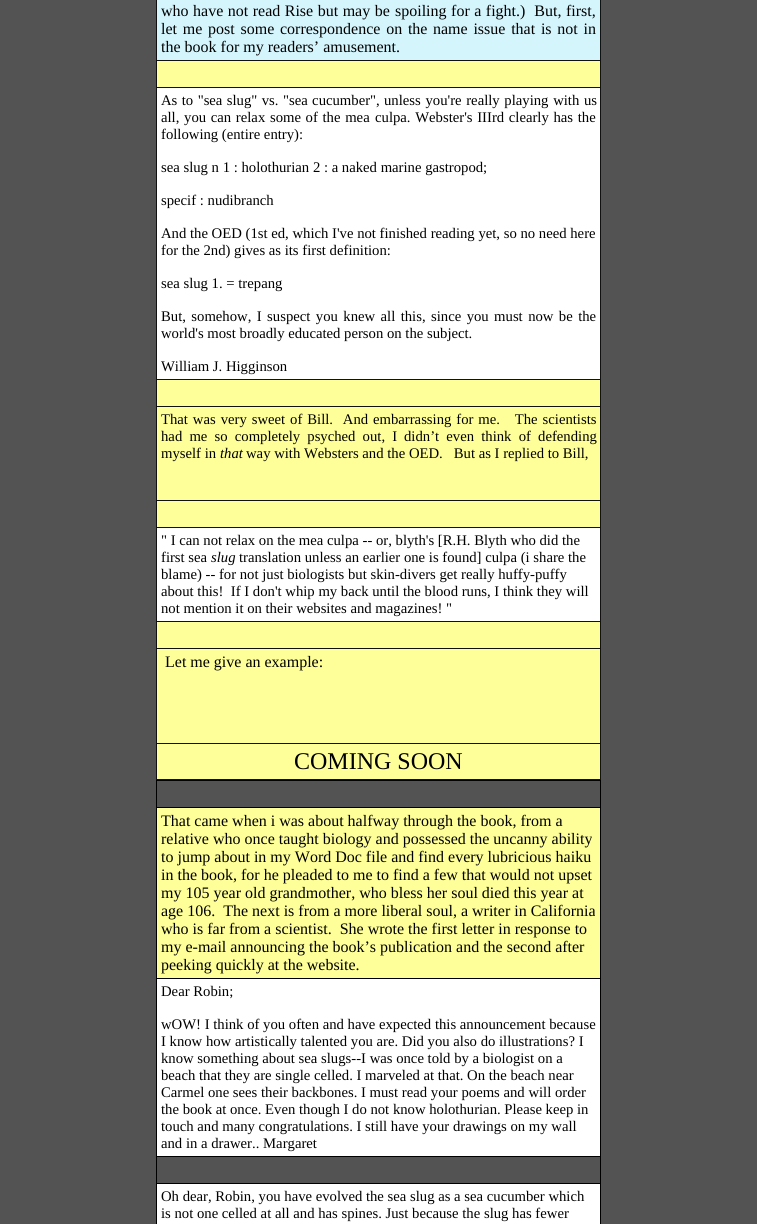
#include <cairo.h>
#include <math.h>
#include <stddef.h>


static void set_color(cairo_t *cr, unsigned color) {
    cairo_set_source_rgb(cr, (color >> 16) / 255.0, (color >> 8 & 255) / 255.0, (color & 255) / 255.0);
}

static void draw_text(cairo_t *cr, double x, double y, const char *s, const char *family, double size, int italic, int bold, unsigned color) {
    cairo_select_font_face(cr, family, italic ? CAIRO_FONT_SLANT_ITALIC : CAIRO_FONT_SLANT_NORMAL,
        bold ? CAIRO_FONT_WEIGHT_BOLD : CAIRO_FONT_WEIGHT_NORMAL);
    cairo_set_font_size(cr, size);
    set_color(cr, color);
    cairo_move_to(cr, x, y);
    cairo_show_text(cr, s);
}

static void draw_spaced(cairo_t *cr, double x, double y, const char *s, double letter, double word) {
    cairo_move_to(cr, x, y);
    while (*s) {
        char ch[5] = {0};
        int n = 0;
        do ch[n++] = *s++; while ((*s & 0xC0) == 0x80);
        cairo_show_text(cr, ch);
        cairo_rel_move_to(cr, letter + word * (*ch == ' '), 0);
    }
}

static void fill_rect(cairo_t *cr, double x, double y, double w, double h, unsigned color) {
    set_color(cr, color);
    cairo_rectangle(cr, x, y, w, h);
    cairo_fill(cr);
}

int main(void) {
    cairo_surface_t *surface = cairo_image_surface_create(CAIRO_FORMAT_RGB24, 757, 1224);
    cairo_t *cr = cairo_create(surface);
    cairo_font_options_t *options = cairo_font_options_create();
    cairo_font_options_set_hint_metrics(options, CAIRO_HINT_METRICS_OFF);
    cairo_font_options_set_hint_style(options, CAIRO_HINT_STYLE_NONE);
    cairo_set_font_options(cr, options);
    cairo_set_miter_limit(cr, 4);
    set_color(cr, 0x535353);
    cairo_paint(cr);
    fill_rect(cr, 157, 61, 443, 718, 0xFFFF99);
    fill_rect(cr, 600, 0, 1, 780, 0x111111);
    fill_rect(cr, 156, 779, 445, 1, 0x111111);
    fill_rect(cr, 156, 0, 1, 780, 0x111111);
    fill_rect(cr, 157, 0, 443, 60, 0xD5F5FD);
    cairo_select_font_face(cr, "Liberation Serif", CAIRO_FONT_SLANT_NORMAL, CAIRO_FONT_WEIGHT_NORMAL);
    cairo_set_font_size(cr, 16);
    set_color(cr, 0x000000);
    draw_spaced(cr, 161, 16, "who have not read Rise but may be", 0, 0.5);
    draw_spaced(cr, 395, 16, "spoiling for a fight.)  But, first,", 0, 0.5);
    draw_spaced(cr, 161, 34, "let me post some correspondence on the", 0, 1.75);
    draw_spaced(cr, 433, 34, "name issue that is not in", 0, 1.75);
    draw_text(cr, 161, 52, "the book for my readers’ amusement.", "Liberation Serif", 16, 0, 0, 0x000000);
    fill_rect(cr, 156, 60, 445, 1, 0x111111);
    fill_rect(cr, 157, 88, 443, 291, 0xFFFFFF);
    fill_rect(cr, 156, 87, 445, 1, 0x111111);
    cairo_set_font_size(cr, 14.7);
    set_color(cr, 0x000000);
    draw_spaced(cr, 161, 105, "As to \"sea slug\" vs. \"sea cucumber\",", 0, 0.75);
    draw_spaced(cr, 384, 105, "unless you're really playing with us", 0, 1);
    draw_spaced(cr, 161, 122, "all, you can relax some of the mea", 0, 1);
    draw_spaced(cr, 375, 122, "culpa. Webster's IIIrd clearly has the", 0, 1);
    draw_text(cr, 161, 139, "following (entire entry):", "Liberation Serif", 14.7, 0, 0, 0x000000);
    draw_text(cr, 161, 172, "sea slug n 1 : holothurian 2 : a naked marine gastropod;", "Liberation Serif", 14.7, 0, 0, 0x000000);
    draw_text(cr, 161, 205, "specif : nudibranch", "Liberation Serif", 14.7, 0, 0, 0x000000);
    draw_text(cr, 161, 238, "And the OED (1st ed, which I've not finished reading yet, so no need here", "Liberation Serif", 14.7, 0, 0, 0x000000);
    draw_text(cr, 161, 255, "for the 2nd) gives as its first definition:", "Liberation Serif", 14.7, 0, 0, 0x000000);
    draw_text(cr, 161, 288, "sea slug 1. = trepang", "Liberation Serif", 14.7, 0, 0, 0x000000);
    draw_spaced(cr, 161, 321, "But, somehow, I suspect you knew all this,", 0, 1.75);
    draw_spaced(cr, 431, 321, "since you must now be the", 0, 1.75);
    draw_text(cr, 161, 338, "world's most broadly educated person on the subject.", "Liberation Serif", 14.7, 0, 0, 0x000000);
    draw_text(cr, 161, 371, "William J. Higginson", "Liberation Serif", 14.7, 0, 0, 0x000000);
    fill_rect(cr, 156, 379, 445, 1, 0x111111);
    fill_rect(cr, 156, 406, 445, 1, 0x111111);
    set_color(cr, 0x000000);
    draw_spaced(cr, 161, 424, "That was very sweet of Bill.  And", 0, 1.25);
    draw_spaced(cr, 373, 424, "embarrassing for me.   The scientists", 0, 1.25);
    draw_spaced(cr, 161, 441, "had me so completely psyched out, I", 0, 3.5);
    draw_spaced(cr, 404, 441, "didn’t even think of defending", 0, 3.5);
    draw_text(cr, 161, 458, "myself in", "Liberation Serif", 14.7, 0, 0, 0x000000);
    draw_text(cr, 220, 458, "that", "Liberation Serif", 14.7, 1, 0, 0x000000);
    draw_text(cr, 246, 458, "way with Websters and the OED.   But as I replied to Bill,", "Liberation Serif", 14.7, 0, 0, 0x000000);
    fill_rect(cr, 156, 500, 445, 1, 0x111111);
    fill_rect(cr, 157, 528, 443, 93, 0xFFFFFF);
    fill_rect(cr, 156, 527, 445, 1, 0x111111);
    draw_text(cr, 161, 545, "\" I can not relax on the mea culpa -- or, blyth's [R.H. Blyth who did the", "Liberation Serif", 14.7, 0, 0, 0x000000);
    draw_text(cr, 161, 562, "first sea", "Liberation Serif", 14.7, 0, 0, 0x000000);
    draw_text(cr, 211, 562, "slug", "Liberation Serif", 14.7, 1, 0, 0x000000);
    draw_text(cr, 239, 562, "translation unless an earlier one is found] culpa (i share the", "Liberation Serif", 14.7, 0, 0, 0x000000);
    draw_text(cr, 161, 579, "blame) -- for not just biologists but skin-divers get really huffy-puffy", "Liberation Serif", 14.7, 0, 0, 0x000000);
    draw_text(cr, 161, 596, "about this!  If I don't whip my back until the blood runs, I think they will", "Liberation Serif", 14.7, 0, 0, 0x000000);
    draw_text(cr, 161, 613, "not mention it on their websites and magazines! \"", "Liberation Serif", 14.7, 0, 0, 0x000000);
    fill_rect(cr, 156, 621, 445, 1, 0x111111);
    fill_rect(cr, 156, 648, 445, 1, 0x111111);
    draw_text(cr, 165, 667, "Let me give an example:", "Liberation Serif", 16, 0, 0, 0x000000);
    fill_rect(cr, 156, 743, 445, 1, 0x111111);
    draw_text(cr, 294, 769, "COMING SOON", "Liberation Serif", 24, 0, 0, 0x000000);
    fill_rect(cr, 156, 780, 445, 1, 0x000000);
    fill_rect(cr, 600, 780, 1, 444, 0x000000);
    fill_rect(cr, 156, 780, 1, 444, 0x000000);
    fill_rect(cr, 157, 808, 443, 170, 0xFFFF99);
    fill_rect(cr, 156, 807, 445, 1, 0x000000);
    draw_text(cr, 161, 826, "That came when i was about halfway through the book, from a", "Liberation Serif", 16, 0, 0, 0x000000);
    draw_text(cr, 161, 844, "relative who once taught biology and possessed the uncanny ability", "Liberation Serif", 16, 0, 0, 0x000000);
    draw_text(cr, 161, 862, "to jump about in my Word Doc file and find every lubricious haiku", "Liberation Serif", 16, 0, 0, 0x000000);
    draw_text(cr, 161, 880, "in the book, for he pleaded to me to find a few that would not upset", "Liberation Serif", 16, 0, 0, 0x000000);
    draw_text(cr, 161, 898, "my 105 year old grandmother, who bless her soul died this year at", "Liberation Serif", 16, 0, 0, 0x000000);
    draw_text(cr, 161, 916, "age 106.  The next is from a more liberal soul, a writer in California", "Liberation Serif", 16, 0, 0, 0x000000);
    draw_text(cr, 161, 934, "who is far from a scientist.  She wrote the first letter in response to", "Liberation Serif", 16, 0, 0, 0x000000);
    draw_text(cr, 161, 952, "my e-mail announcing the book’s publication and the second after", "Liberation Serif", 16, 0, 0, 0x000000);
    draw_text(cr, 161, 970, "peeking quickly at the website.", "Liberation Serif", 16, 0, 0, 0x000000);
    fill_rect(cr, 157, 979, 443, 177, 0xFFFFFF);
    fill_rect(cr, 156, 978, 445, 1, 0x000000);
    draw_text(cr, 161, 996, "Dear Robin;", "Liberation Serif", 14.7, 0, 0, 0x000000);
    draw_text(cr, 161, 1029, "wOW! I think of you often and have expected this announcement because", "Liberation Serif", 14.7, 0, 0, 0x000000);
    draw_text(cr, 161, 1046, "I know how artistically talented you are. Did you also do illustrations? I", "Liberation Serif", 14.7, 0, 0, 0x000000);
    draw_text(cr, 161, 1063, "know something about sea slugs--I was once told by a biologist on a", "Liberation Serif", 14.7, 0, 0, 0x000000);
    draw_text(cr, 161, 1080, "beach that they are single celled. I marveled at that. On the beach near", "Liberation Serif", 14.7, 0, 0, 0x000000);
    draw_text(cr, 161, 1097, "Carmel one sees their backbones. I must read your poems and will order", "Liberation Serif", 14.7, 0, 0, 0x000000);
    draw_text(cr, 161, 1114, "the book at once. Even though I do not know holothurian. Please keep in", "Liberation Serif", 14.7, 0, 0, 0x000000);
    draw_text(cr, 161, 1131, "touch and many congratulations. I still have your drawings on my wall", "Liberation Serif", 14.7, 0, 0, 0x000000);
    draw_text(cr, 161, 1148, "and in a drawer.. Margaret", "Liberation Serif", 14.7, 0, 0, 0x000000);
    fill_rect(cr, 156, 1156, 445, 1, 0x000000);
    fill_rect(cr, 157, 1184, 443, 40, 0xFFFFFF);
    fill_rect(cr, 156, 1183, 445, 1, 0x000000);
    draw_text(cr, 161, 1201, "Oh dear, Robin, you have evolved the sea slug as a sea cucumber which", "Liberation Serif", 14.7, 0, 0, 0x000000);
    draw_text(cr, 161, 1218, "is not one celled at all and has spines. Just because the slug has fewer", "Liberation Serif", 14.7, 0, 0, 0x000000);
    cairo_surface_write_to_png(surface, "output.png");
    cairo_font_options_destroy(options);
    cairo_destroy(cr);
    cairo_surface_destroy(surface);
    return 0;
}
